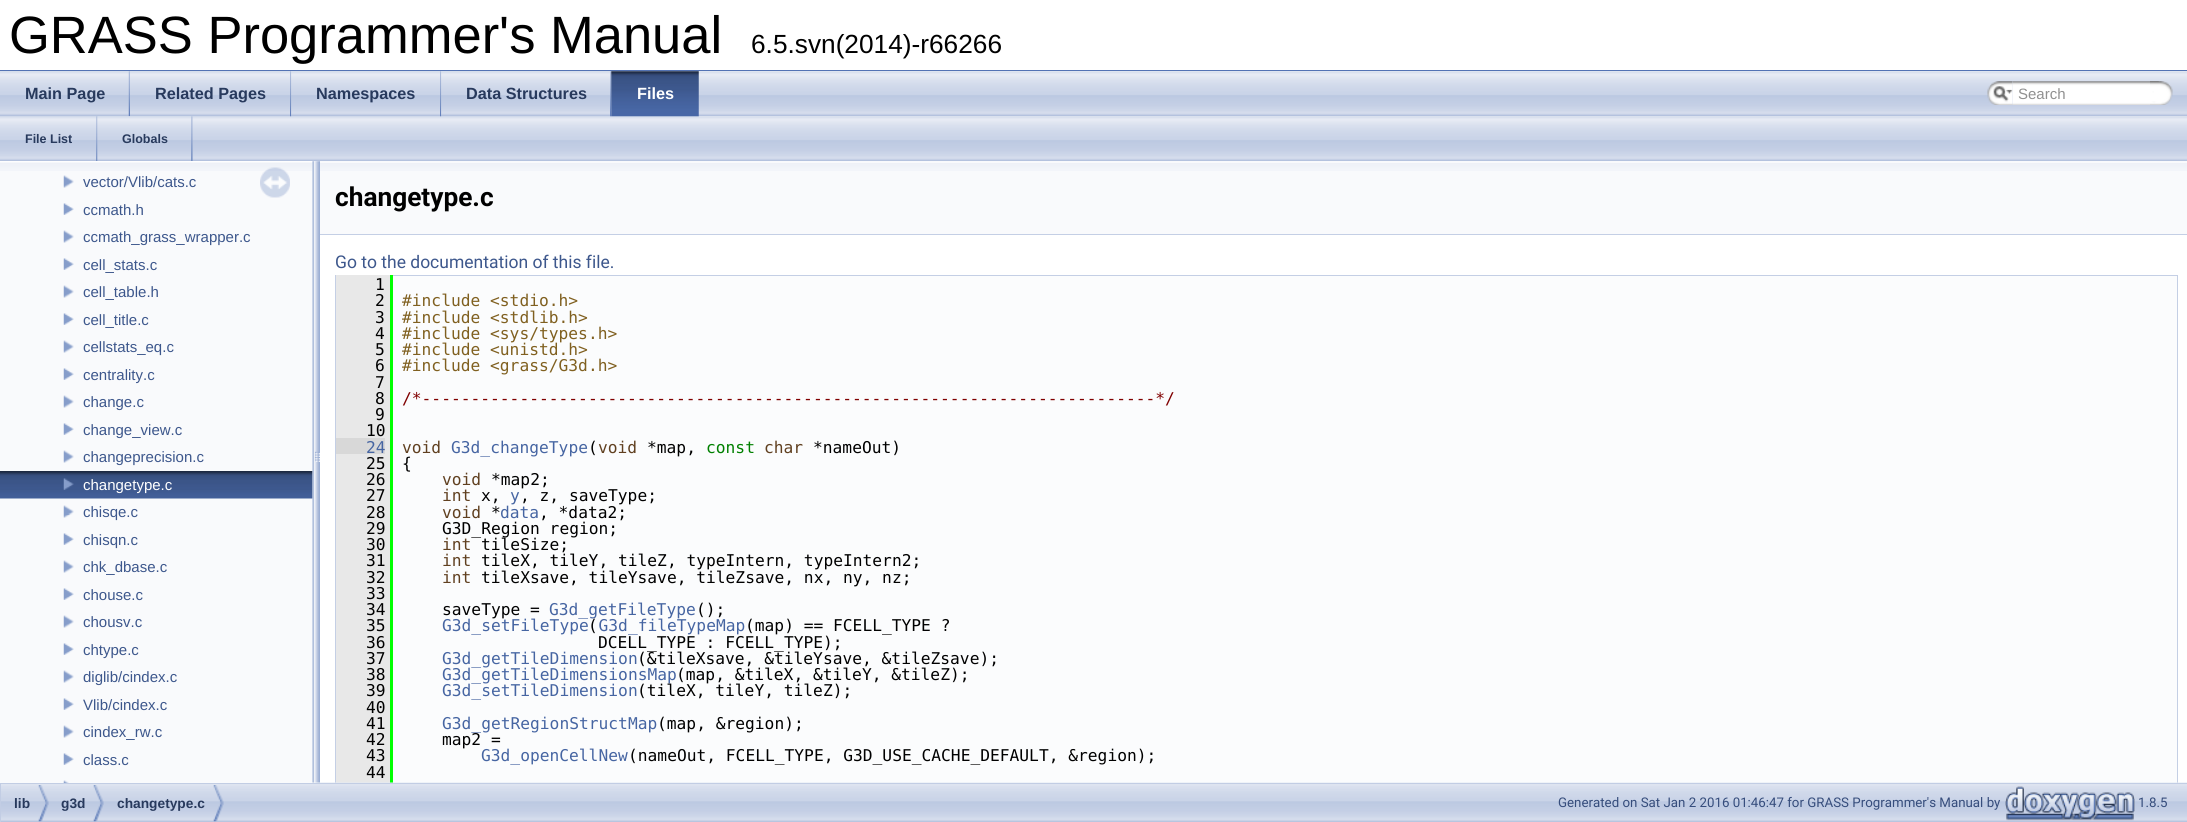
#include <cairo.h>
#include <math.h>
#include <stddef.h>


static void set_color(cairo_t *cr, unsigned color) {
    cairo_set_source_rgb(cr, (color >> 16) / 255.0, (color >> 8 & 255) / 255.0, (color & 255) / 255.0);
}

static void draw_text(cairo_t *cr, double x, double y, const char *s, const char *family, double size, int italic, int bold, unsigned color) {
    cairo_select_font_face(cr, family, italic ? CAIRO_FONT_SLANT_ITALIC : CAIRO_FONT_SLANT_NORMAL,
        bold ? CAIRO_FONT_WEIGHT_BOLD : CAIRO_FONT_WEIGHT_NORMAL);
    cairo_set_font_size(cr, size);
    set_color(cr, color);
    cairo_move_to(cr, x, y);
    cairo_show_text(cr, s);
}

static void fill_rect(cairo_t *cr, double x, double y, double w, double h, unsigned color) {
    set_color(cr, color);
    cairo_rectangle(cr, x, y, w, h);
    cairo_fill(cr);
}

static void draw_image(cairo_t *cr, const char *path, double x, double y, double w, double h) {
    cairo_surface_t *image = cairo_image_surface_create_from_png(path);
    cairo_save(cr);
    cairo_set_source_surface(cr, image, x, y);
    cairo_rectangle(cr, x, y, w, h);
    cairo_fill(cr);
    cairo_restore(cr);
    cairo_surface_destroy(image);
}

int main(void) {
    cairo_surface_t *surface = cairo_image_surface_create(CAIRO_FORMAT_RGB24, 2187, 822);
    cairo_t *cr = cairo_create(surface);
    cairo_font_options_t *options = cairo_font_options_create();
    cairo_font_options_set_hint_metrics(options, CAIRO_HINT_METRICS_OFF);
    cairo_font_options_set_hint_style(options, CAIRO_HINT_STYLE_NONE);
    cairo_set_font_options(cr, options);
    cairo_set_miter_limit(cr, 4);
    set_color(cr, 0xFFFFFF);
    cairo_paint(cr);
    fill_rect(cr, 0, 70, 2187, 1, 0x5373B4);
    draw_text(cr, 9, 53, "GRASS Programmer's Manual", "Liberation Sans", 52.5, 0, 0, 0x000000);
    draw_text(cr, 751, 53, "6.5.svn(2014)-r66266", "Liberation Sans", 26.25, 0, 0, 0x000000);
    draw_image(cr, "assets/img1.png", 0, 71, 2187, 46);
    draw_image(cr, "assets/img14.png", 0, 116, 2187, 46);
    draw_image(cr, "assets/img2.png", 0, 71, 130, 46);
    draw_image(cr, "assets/img3.png", 128, 71, 2, 46);
    draw_text(cr, 25, 99, "Main Page", "Liberation Sans", 16.25, 0, 1, 0x283A5D);
    draw_image(cr, "assets/img4.png", 130, 71, 161, 46);
    draw_image(cr, "assets/img5.png", 290, 71, 2, 46);
    draw_text(cr, 155, 99, "Related Pages", "Liberation Sans", 16.25, 0, 1, 0x283A5D);
    draw_image(cr, "assets/img6.png", 291, 71, 150, 46);
    draw_image(cr, "assets/img5.png", 440, 71, 2, 46);
    draw_text(cr, 316, 99, "Namespaces", "Liberation Sans", 16.25, 0, 1, 0x283A5D);
    draw_image(cr, "assets/img7.png", 441, 71, 170, 46);
    draw_image(cr, "assets/img5.png", 610, 71, 2, 46);
    draw_text(cr, 466, 99, "Data Structures", "Liberation Sans", 16.25, 0, 1, 0x283A5D);
    draw_image(cr, "assets/img8.png", 611, 71, 88, 46);
    draw_image(cr, "assets/img9.png", 611, 71, 88, 46);
    draw_text(cr, 637, 99, "Files", "Liberation Sans", 16.25, 0, 1, 0xFFFFFF);
    draw_image(cr, "assets/img10.png", 1987, 81, 26, 24);
    draw_image(cr, "assets/img11.png", 1993, 86, 20, 16);
    draw_image(cr, "assets/img12.png", 2012, 81, 147, 24);
    draw_text(cr, 2018, 99, "Search", "Liberation Sans", 15, 0, 0, 0x909090);
    draw_image(cr, "assets/img13.png", 2150, 81, 23, 24);
    draw_image(cr, "assets/img15.png", 96, 116, 2, 45);
    draw_text(cr, 25, 143, "File List", "Liberation Sans", 12.5, 0, 1, 0x283A5D);
    draw_image(cr, "assets/img16.png", 97, 116, 96, 45);
    draw_image(cr, "assets/img17.png", 191, 116, 2, 45);
    draw_text(cr, 122, 143, "Globals", "Liberation Sans", 12.5, 0, 1, 0x283A5D);
    fill_rect(cr, 393, 276, 1784, 507, 0xFBFCFD);
    cairo_rectangle(cr, 335.5, 275.5, 1842, 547);
    set_color(cr, 0xC4CFE5);
    cairo_set_line_width(cr, 1);
    cairo_stroke(cr);
    fill_rect(cr, 390, 275, 3, 506, 0x00FF00);
    fill_rect(cr, 336, 779, 57, 4, 0xE8E8E8);
    fill_rect(cr, 390, 779, 3, 4, 0x00FF00);
    draw_image(cr, "assets/img28.png", 1, 782, 2186, 40);
    fill_rect(cr, 0, 161, 313, 622, 0xF9FAFC);
    draw_image(cr, "assets/img18.png", 0, 161, 313, 10);
    draw_image(cr, "assets/img19.png", 63, 175, 11, 13);
    draw_text(cr, 83, 187, "vector/Vlib/cats.c", "Liberation Sans", 15, 0, 0, 0x3D578C);
    draw_image(cr, "assets/img20.png", 63, 203, 11, 12);
    draw_text(cr, 83, 215, "ccmath.h", "Liberation Sans", 15, 0, 0, 0x3D578C);
    draw_image(cr, "assets/img19.png", 63, 230, 11, 13);
    draw_text(cr, 83, 242, "ccmath_grass_wrapper.c", "Liberation Sans", 15, 0, 0, 0x3D578C);
    draw_image(cr, "assets/img20.png", 63, 258, 11, 12);
    draw_text(cr, 83, 270, "cell_stats.c", "Liberation Sans", 15, 0, 0, 0x3D578C);
    draw_image(cr, "assets/img19.png", 63, 285, 11, 13);
    draw_text(cr, 83, 297, "cell_table.h", "Liberation Sans", 15, 0, 0, 0x3D578C);
    draw_image(cr, "assets/img20.png", 63, 313, 11, 12);
    draw_text(cr, 83, 325, "cell_title.c", "Liberation Sans", 15, 0, 0, 0x3D578C);
    draw_image(cr, "assets/img19.png", 63, 340, 11, 13);
    draw_text(cr, 83, 352, "cellstats_eq.c", "Liberation Sans", 15, 0, 0, 0x3D578C);
    draw_image(cr, "assets/img20.png", 63, 368, 11, 12);
    draw_text(cr, 83, 380, "centrality.c", "Liberation Sans", 15, 0, 0, 0x3D578C);
    draw_image(cr, "assets/img19.png", 63, 395, 11, 13);
    draw_text(cr, 83, 407, "change.c", "Liberation Sans", 15, 0, 0, 0x3D578C);
    draw_image(cr, "assets/img20.png", 63, 423, 11, 12);
    draw_text(cr, 83, 435, "change_view.c", "Liberation Sans", 15, 0, 0, 0x3D578C);
    draw_image(cr, "assets/img19.png", 63, 450, 11, 13);
    draw_text(cr, 83, 462, "changeprecision.c", "Liberation Sans", 15, 0, 0, 0x3D578C);
    draw_image(cr, "assets/img21.png", 0, 471, 313, 28);
    draw_image(cr, "assets/img22.png", 63, 478, 11, 12);
    draw_text(cr, 83, 490, "changetype.c", "Liberation Sans", 15, 0, 0, 0xFFFFFF);
    draw_image(cr, "assets/img23.png", 63, 505, 11, 13);
    draw_text(cr, 83, 517, "chisqe.c", "Liberation Sans", 15, 0, 0, 0x3D578C);
    draw_image(cr, "assets/img20.png", 63, 533, 11, 12);
    draw_text(cr, 83, 545, "chisqn.c", "Liberation Sans", 15, 0, 0, 0x3D578C);
    draw_image(cr, "assets/img19.png", 63, 560, 11, 13);
    draw_text(cr, 83, 572, "chk_dbase.c", "Liberation Sans", 15, 0, 0, 0x3D578C);
    draw_image(cr, "assets/img20.png", 63, 588, 11, 12);
    draw_text(cr, 83, 600, "chouse.c", "Liberation Sans", 15, 0, 0, 0x3D578C);
    draw_image(cr, "assets/img19.png", 63, 615, 11, 13);
    draw_text(cr, 83, 627, "chousv.c", "Liberation Sans", 15, 0, 0, 0x3D578C);
    draw_image(cr, "assets/img20.png", 63, 643, 11, 12);
    draw_text(cr, 83, 655, "chtype.c", "Liberation Sans", 15, 0, 0, 0x3D578C);
    draw_image(cr, "assets/img19.png", 63, 670, 11, 13);
    draw_text(cr, 83, 682, "diglib/cindex.c", "Liberation Sans", 15, 0, 0, 0x3D578C);
    draw_image(cr, "assets/img20.png", 63, 698, 11, 12);
    draw_text(cr, 83, 710, "Vlib/cindex.c", "Liberation Sans", 15, 0, 0, 0x3D578C);
    draw_image(cr, "assets/img19.png", 63, 725, 11, 13);
    draw_text(cr, 83, 737, "cindex_rw.c", "Liberation Sans", 15, 0, 0, 0x3D578C);
    draw_image(cr, "assets/img20.png", 63, 753, 11, 12);
    draw_text(cr, 83, 765, "class.c", "Liberation Sans", 15, 0, 0, 0x3D578C);
    draw_image(cr, "assets/img24.png", 63, 780, 6, 3);
    draw_image(cr, "assets/img25.png", 260, 167, 30, 31);
    draw_image(cr, "assets/img26.png", 312, 161, 8, 622);
    fill_rect(cr, 320, 161, 1867, 73, 0xF9FAFC);
    draw_image(cr, "assets/img27.png", 320, 163, 1867, 8);
    fill_rect(cr, 320, 234, 1867, 1, 0xC4CFE5);
    draw_text(cr, 335, 206, "changetype.c", "Roboto", 26.25, 0, 1, 0x000000);
    draw_text(cr, 335, 268, "Go to the documentation of this file.", "Roboto", 17.5, 0, 0, 0x3D578C);
    fill_rect(cr, 336, 275, 54, 163, 0xE8E8E8);
    draw_text(cr, 375, 290, "1", "DejaVu Sans Mono", 16.25, 0, 0, 0x000000);
    draw_text(cr, 375, 306, "2", "DejaVu Sans Mono", 16.25, 0, 0, 0x000000);
    draw_text(cr, 402, 306, "#include <stdio.h>", "DejaVu Sans Mono", 16.25, 0, 0, 0x806020);
    draw_text(cr, 375, 323, "3", "DejaVu Sans Mono", 16.25, 0, 0, 0x000000);
    draw_text(cr, 402, 323, "#include <stdlib.h>", "DejaVu Sans Mono", 16.25, 0, 0, 0x806020);
    draw_text(cr, 375, 339, "4", "DejaVu Sans Mono", 16.25, 0, 0, 0x000000);
    draw_text(cr, 402, 339, "#include <sys/types.h>", "DejaVu Sans Mono", 16.25, 0, 0, 0x806020);
    draw_text(cr, 375, 355, "5", "DejaVu Sans Mono", 16.25, 0, 0, 0x000000);
    draw_text(cr, 402, 355, "#include <unistd.h>", "DejaVu Sans Mono", 16.25, 0, 0, 0x806020);
    draw_text(cr, 375, 371, "6", "DejaVu Sans Mono", 16.25, 0, 0, 0x000000);
    draw_text(cr, 402, 371, "#include <grass/G3d.h>", "DejaVu Sans Mono", 16.25, 0, 0, 0x806020);
    draw_text(cr, 375, 388, "7", "DejaVu Sans Mono", 16.25, 0, 0, 0x000000);
    draw_text(cr, 375, 404, "8", "DejaVu Sans Mono", 16.25, 0, 0, 0x000000);
    draw_text(cr, 402, 404, "/*---------------------------------------------------------------------------*/", "DejaVu Sans Mono", 16.25, 0, 0, 0x800000);
    draw_text(cr, 375, 420, "9", "DejaVu Sans Mono", 16.25, 0, 0, 0x000000);
    draw_text(cr, 366, 436, "10", "DejaVu Sans Mono", 16.25, 0, 0, 0x000000);
    fill_rect(cr, 336, 438, 49, 16, 0xD8D8D8);
    draw_text(cr, 366, 453, "24", "DejaVu Sans Mono", 16.25, 0, 0, 0x4665A2);
    fill_rect(cr, 385, 438, 5, 16, 0xE8E8E8);
    draw_text(cr, 402, 453, "void", "DejaVu Sans Mono", 16.25, 0, 0, 0x604020);
    draw_text(cr, 451, 453, "G3d_changeType", "DejaVu Sans Mono", 16.25, 0, 0, 0x4665A2);
    draw_text(cr, 588, 453, "(", "DejaVu Sans Mono", 16.25, 0, 0, 0x000000);
    draw_text(cr, 598, 453, "void", "DejaVu Sans Mono", 16.25, 0, 0, 0x604020);
    draw_text(cr, 647, 453, "*map,", "DejaVu Sans Mono", 16.25, 0, 0, 0x000000);
    draw_text(cr, 706, 453, "const", "DejaVu Sans Mono", 16.25, 0, 0, 0x008000);
    draw_text(cr, 764, 453, "char", "DejaVu Sans Mono", 16.25, 0, 0, 0x604020);
    draw_text(cr, 813, 453, "*nameOut)", "DejaVu Sans Mono", 16.25, 0, 0, 0x000000);
    fill_rect(cr, 336, 454, 54, 325, 0xE8E8E8);
    draw_text(cr, 366, 469, "25", "DejaVu Sans Mono", 16.25, 0, 0, 0x000000);
    draw_text(cr, 402, 469, "{", "DejaVu Sans Mono", 16.25, 0, 0, 0x000000);
    draw_text(cr, 366, 485, "26", "DejaVu Sans Mono", 16.25, 0, 0, 0x000000);
    draw_text(cr, 442, 485, "void", "DejaVu Sans Mono", 16.25, 0, 0, 0x604020);
    draw_text(cr, 491, 485, "*map2;", "DejaVu Sans Mono", 16.25, 0, 0, 0x000000);
    draw_text(cr, 366, 501, "27", "DejaVu Sans Mono", 16.25, 0, 0, 0x000000);
    draw_text(cr, 442, 501, "int", "DejaVu Sans Mono", 16.25, 0, 0, 0x604020);
    draw_text(cr, 481, 501, "x,", "DejaVu Sans Mono", 16.25, 0, 0, 0x000000);
    draw_text(cr, 510, 501, "y", "DejaVu Sans Mono", 16.25, 0, 0, 0x4665A2);
    draw_text(cr, 520, 501, ", z, saveType;", "DejaVu Sans Mono", 16.25, 0, 0, 0x000000);
    draw_text(cr, 366, 518, "28", "DejaVu Sans Mono", 16.25, 0, 0, 0x000000);
    draw_text(cr, 442, 518, "void", "DejaVu Sans Mono", 16.25, 0, 0, 0x604020);
    draw_text(cr, 491, 518, "*", "DejaVu Sans Mono", 16.25, 0, 0, 0x000000);
    draw_text(cr, 500, 518, "data", "DejaVu Sans Mono", 16.25, 0, 0, 0x4665A2);
    draw_text(cr, 539, 518, ", *data2;", "DejaVu Sans Mono", 16.25, 0, 0, 0x000000);
    draw_text(cr, 366, 534, "29", "DejaVu Sans Mono", 16.25, 0, 0, 0x000000);
    draw_text(cr, 442, 534, "G3D_Region region;", "DejaVu Sans Mono", 16.25, 0, 0, 0x000000);
    draw_text(cr, 366, 550, "30", "DejaVu Sans Mono", 16.25, 0, 0, 0x000000);
    draw_text(cr, 442, 550, "int", "DejaVu Sans Mono", 16.25, 0, 0, 0x604020);
    draw_text(cr, 481, 550, "tileSize;", "DejaVu Sans Mono", 16.25, 0, 0, 0x000000);
    draw_text(cr, 366, 566, "31", "DejaVu Sans Mono", 16.25, 0, 0, 0x000000);
    draw_text(cr, 442, 566, "int", "DejaVu Sans Mono", 16.25, 0, 0, 0x604020);
    draw_text(cr, 481, 566, "tileX, tileY, tileZ, typeIntern, typeIntern2;", "DejaVu Sans Mono", 16.25, 0, 0, 0x000000);
    draw_text(cr, 366, 583, "32", "DejaVu Sans Mono", 16.25, 0, 0, 0x000000);
    draw_text(cr, 442, 583, "int", "DejaVu Sans Mono", 16.25, 0, 0, 0x604020);
    draw_text(cr, 481, 583, "tileXsave, tileYsave, tileZsave, nx, ny, nz;", "DejaVu Sans Mono", 16.25, 0, 0, 0x000000);
    draw_text(cr, 366, 599, "33", "DejaVu Sans Mono", 16.25, 0, 0, 0x000000);
    draw_text(cr, 366, 615, "34", "DejaVu Sans Mono", 16.25, 0, 0, 0x000000);
    draw_text(cr, 442, 615, "saveType =", "DejaVu Sans Mono", 16.25, 0, 0, 0x000000);
    draw_text(cr, 549, 615, "G3d_getFileType", "DejaVu Sans Mono", 16.25, 0, 0, 0x4665A2);
    draw_text(cr, 696, 615, "();", "DejaVu Sans Mono", 16.25, 0, 0, 0x000000);
    draw_text(cr, 366, 631, "35", "DejaVu Sans Mono", 16.25, 0, 0, 0x000000);
    draw_text(cr, 442, 631, "G3d_setFileType G3d_fileTypeMap", "DejaVu Sans Mono", 16.25, 0, 0, 0x4665A2);
    draw_text(cr, 588, 631, "(", "DejaVu Sans Mono", 16.25, 0, 0, 0x000000);
    draw_text(cr, 745, 631, "(map) == FCELL_TYPE ?", "DejaVu Sans Mono", 16.25, 0, 0, 0x000000);
    draw_text(cr, 366, 648, "36", "DejaVu Sans Mono", 16.25, 0, 0, 0x000000);
    draw_text(cr, 598, 648, "DCELL_TYPE : FCELL_TYPE);", "DejaVu Sans Mono", 16.25, 0, 0, 0x000000);
    draw_text(cr, 366, 664, "37", "DejaVu Sans Mono", 16.25, 0, 0, 0x000000);
    draw_text(cr, 442, 664, "G3d_getTileDimension", "DejaVu Sans Mono", 16.25, 0, 0, 0x4665A2);
    draw_text(cr, 637, 664, "(&tileXsave, &tileYsave, &tileZsave);", "DejaVu Sans Mono", 16.25, 0, 0, 0x000000);
    draw_text(cr, 366, 680, "38", "DejaVu Sans Mono", 16.25, 0, 0, 0x000000);
    draw_text(cr, 442, 680, "G3d_getTileDimensionsMap", "DejaVu Sans Mono", 16.25, 0, 0, 0x4665A2);
    draw_text(cr, 676, 680, "(map, &tileX, &tileY, &tileZ);", "DejaVu Sans Mono", 16.25, 0, 0, 0x000000);
    draw_text(cr, 366, 696, "39", "DejaVu Sans Mono", 16.25, 0, 0, 0x000000);
    draw_text(cr, 442, 696, "G3d_setTileDimension", "DejaVu Sans Mono", 16.25, 0, 0, 0x4665A2);
    draw_text(cr, 637, 696, "(tileX, tileY, tileZ);", "DejaVu Sans Mono", 16.25, 0, 0, 0x000000);
    draw_text(cr, 366, 713, "40", "DejaVu Sans Mono", 16.25, 0, 0, 0x000000);
    draw_text(cr, 366, 729, "41", "DejaVu Sans Mono", 16.25, 0, 0, 0x000000);
    draw_text(cr, 442, 729, "G3d_getRegionStructMap", "DejaVu Sans Mono", 16.25, 0, 0, 0x4665A2);
    draw_text(cr, 657, 729, "(map, &region);", "DejaVu Sans Mono", 16.25, 0, 0, 0x000000);
    draw_text(cr, 366, 745, "42", "DejaVu Sans Mono", 16.25, 0, 0, 0x000000);
    draw_text(cr, 442, 745, "map2 =", "DejaVu Sans Mono", 16.25, 0, 0, 0x000000);
    draw_text(cr, 366, 761, "43", "DejaVu Sans Mono", 16.25, 0, 0, 0x000000);
    draw_text(cr, 481, 761, "G3d_openCellNew", "DejaVu Sans Mono", 16.25, 0, 0, 0x4665A2);
    draw_text(cr, 628, 761, "(nameOut, FCELL_TYPE, G3D_USE_CACHE_DEFAULT, &region);", "DejaVu Sans Mono", 16.25, 0, 0, 0x000000);
    draw_text(cr, 366, 778, "44", "DejaVu Sans Mono", 16.25, 0, 0, 0x000000);
    cairo_rectangle(cr, 0.5, 783.5, 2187, 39);
    set_color(cr, 0xC2CDE4);
    cairo_stroke(cr);
    draw_image(cr, "assets/img29.png", 38, 785, 11, 37);
    draw_text(cr, 14, 808, "lib", "Liberation Sans", 13.75, 0, 1, 0x283A5D);
    draw_image(cr, "assets/img30.png", 93, 785, 11, 37);
    draw_text(cr, 61, 808, "g3d", "Liberation Sans", 13.75, 0, 1, 0x283A5D);
    draw_image(cr, "assets/img29.png", 213, 785, 11, 37);
    draw_text(cr, 117, 808, "changetype.c", "Liberation Sans", 13.75, 0, 1, 0x283A5D);
    draw_text(cr, 1558, 807, "Generated on Sat Jan 2 2016 01:46:47 for GRASS Programmer's Manual by", "Roboto", 13.3, 0, 0, 0x364D7C);
    draw_image(cr, "assets/img31.png", 2005, 786, 130, 35);
    draw_text(cr, 2138, 807, "1.8.5", "Roboto", 13.3, 0, 0, 0x364D7C);
    cairo_surface_write_to_png(surface, "output.png");
    cairo_font_options_destroy(options);
    cairo_destroy(cr);
    cairo_surface_destroy(surface);
    return 0;
}
